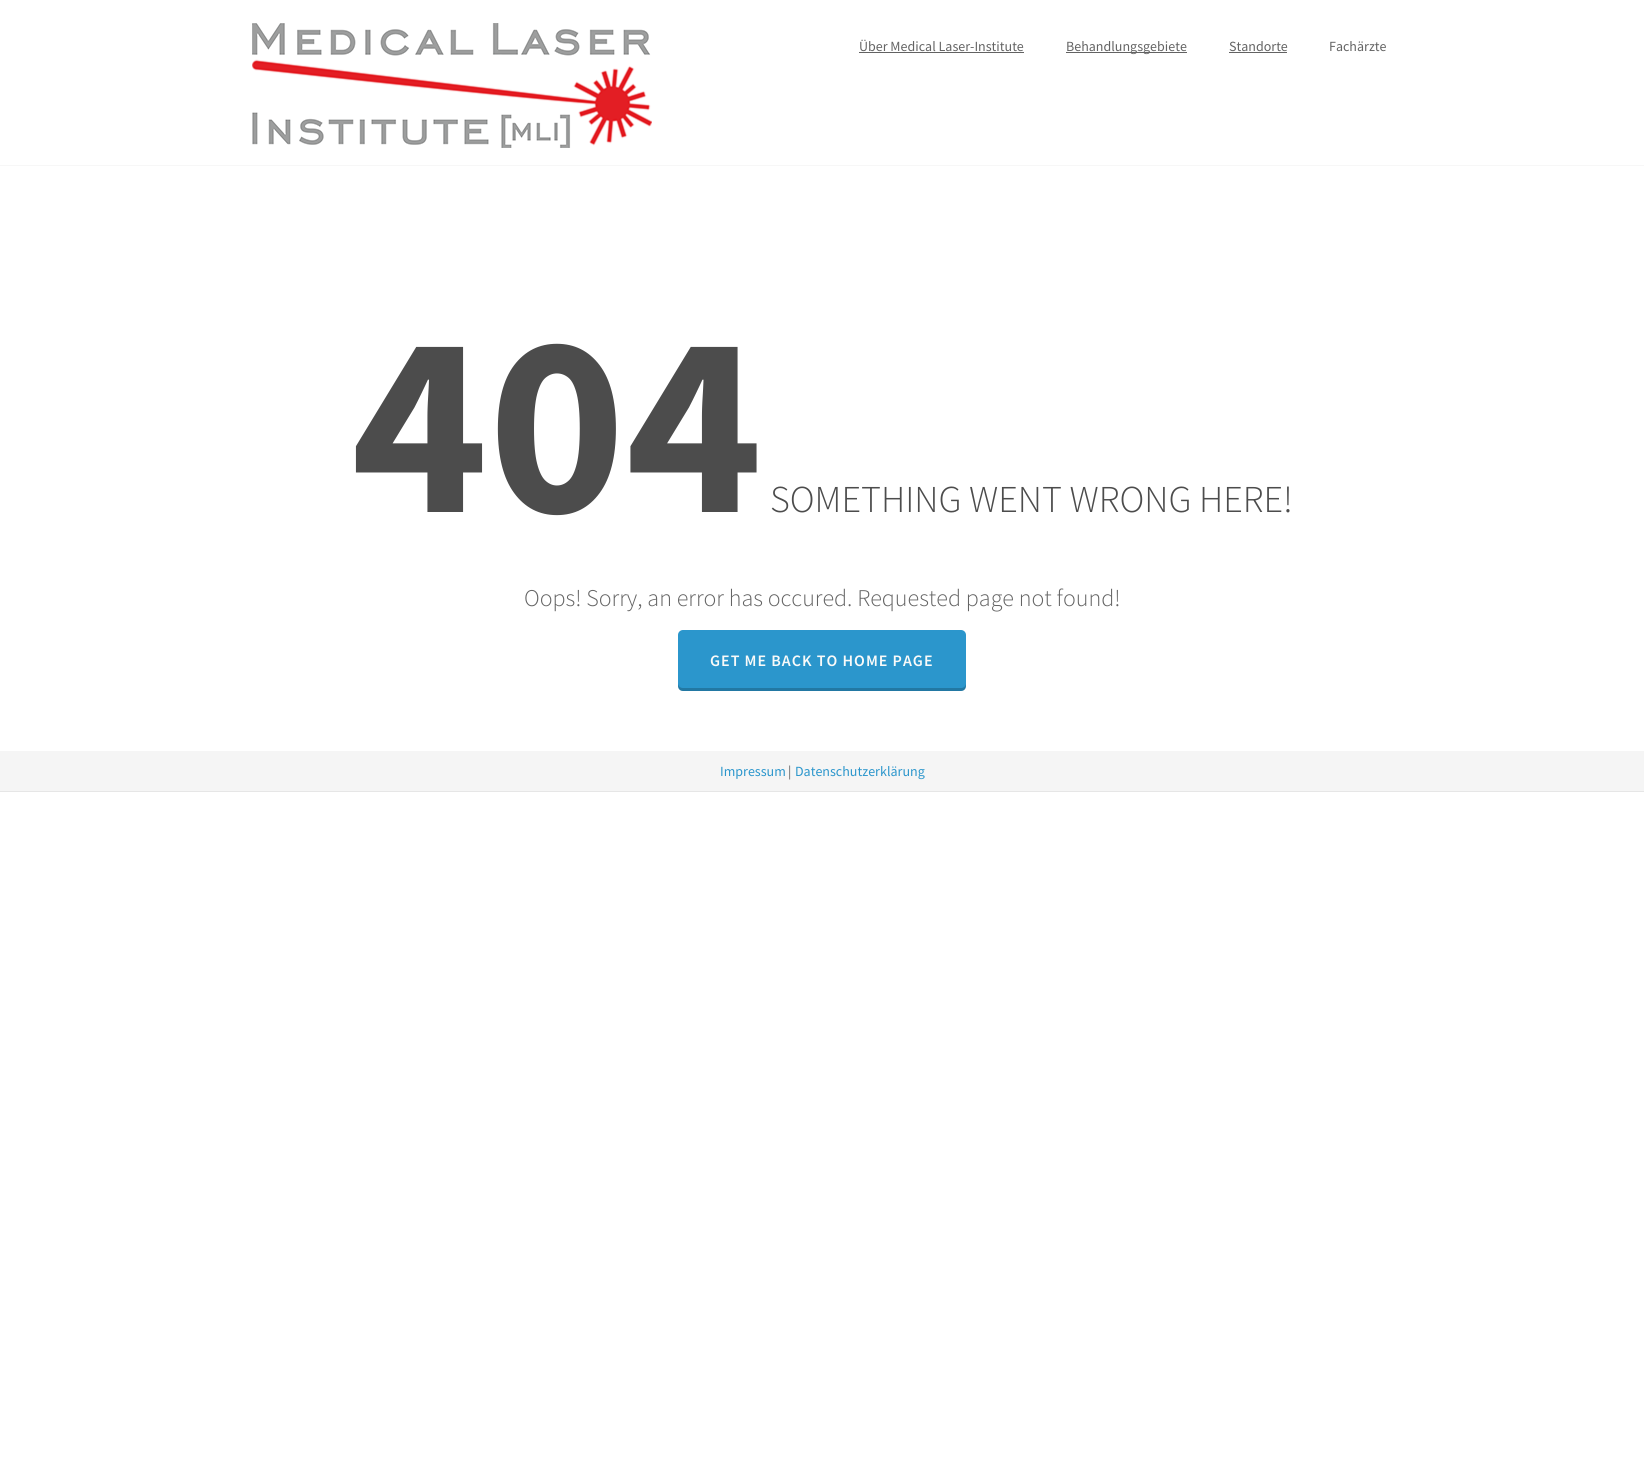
#include <cairo.h>
#include <math.h>
#include <stddef.h>


static void set_color(cairo_t *cr, unsigned color) {
    cairo_set_source_rgb(cr, (color >> 16) / 255.0, (color >> 8 & 255) / 255.0, (color & 255) / 255.0);
}

static void draw_text(cairo_t *cr, double x, double y, const char *s, const char *family, double size, int italic, int bold, unsigned color) {
    cairo_select_font_face(cr, family, italic ? CAIRO_FONT_SLANT_ITALIC : CAIRO_FONT_SLANT_NORMAL,
        bold ? CAIRO_FONT_WEIGHT_BOLD : CAIRO_FONT_WEIGHT_NORMAL);
    cairo_set_font_size(cr, size);
    set_color(cr, color);
    cairo_move_to(cr, x, y);
    cairo_show_text(cr, s);
}

static void draw_spaced(cairo_t *cr, double x, double y, const char *s, double letter, double word) {
    cairo_move_to(cr, x, y);
    while (*s) {
        char ch[5] = {0};
        int n = 0;
        do ch[n++] = *s++; while ((*s & 0xC0) == 0x80);
        cairo_show_text(cr, ch);
        cairo_rel_move_to(cr, letter + word * (*ch == ' '), 0);
    }
}

static void fill_rect(cairo_t *cr, double x, double y, double w, double h, unsigned color) {
    set_color(cr, color);
    cairo_rectangle(cr, x, y, w, h);
    cairo_fill(cr);
}

static void rounded_rect(cairo_t *cr, double x, double y, double w, double h, double r) {
    cairo_new_sub_path(cr);
    cairo_arc(cr, x + w - r, y + h - r, r, 0, M_PI / 2);
    cairo_arc(cr, x + r, y + h - r, r, M_PI / 2, M_PI);
    cairo_arc(cr, x + r, y + r, r, M_PI, 1.5 * M_PI);
    cairo_arc(cr, x + w - r, y + r, r, 1.5 * M_PI, 2 * M_PI);
    cairo_close_path(cr);
}

static void draw_image(cairo_t *cr, const char *path, double x, double y, double w, double h) {
    cairo_surface_t *image = cairo_image_surface_create_from_png(path);
    cairo_save(cr);
    cairo_set_source_surface(cr, image, x, y);
    cairo_rectangle(cr, x, y, w, h);
    cairo_fill(cr);
    cairo_restore(cr);
    cairo_surface_destroy(image);
}

int main(void) {
    cairo_surface_t *surface = cairo_image_surface_create(CAIRO_FORMAT_RGB24, 1644, 1464);
    cairo_t *cr = cairo_create(surface);
    cairo_font_options_t *options = cairo_font_options_create();
    cairo_font_options_set_hint_metrics(options, CAIRO_HINT_METRICS_OFF);
    cairo_font_options_set_hint_style(options, CAIRO_HINT_STYLE_NONE);
    cairo_set_font_options(cr, options);
    cairo_set_miter_limit(cr, 4);
    set_color(cr, 0xFFFFFF);
    cairo_paint(cr);
    draw_image(cr, "assets/img1.png", 252, 23, 400, 125);
    draw_text(cr, 859, 51, "Über Medical Laser-Institute", "Source Sans Pro", 14, 0, 0, 0x646464);
    fill_rect(cr, 859, 52, 165, 1, 0x626262);
    fill_rect(cr, 1066, 52, 121, 1, 0x626262);
    draw_text(cr, 1066, 51, "Behandlungsgebiete", "Source Sans Pro", 14, 0, 0, 0x646464);
    draw_text(cr, 1229, 51, "Standorte", "Source Sans Pro", 14, 0, 0, 0x646464);
    fill_rect(cr, 1229, 52, 58, 1, 0x626262);
    draw_text(cr, 1329, 51, "Fachärzte", "Source Sans Pro", 14, 0, 0, 0x646464);
    fill_rect(cr, 0, 165, 1644, 1, 0xF7F7F7);
    draw_text(cr, 351, 512, "404", "Source Sans Pro", 260, 0, 1, 0x4C4C4C);
    draw_text(cr, 770, 512, "SOMETHING WENT WRONG HERE!", "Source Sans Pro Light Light", 38, 0, 0, 0x4C4C4C);
    draw_text(cr, 524, 606, "Oops! Sorry, an error has occured. Requested page not found!", "Source Sans Pro Light Light", 24, 0, 0, 0x646464);
    set_color(cr, 0x2B96CC);
    rounded_rect(cr, 678, 630, 288, 61, 5);
    cairo_fill(cr);
    cairo_set_source_rgba(cr, 0, 0, 0, 0.2);
    cairo_new_path(cr);
    cairo_move_to(cr, 678, 683);
    cairo_curve_to(cr, 678, 687, 678, 691, 683, 691);
    cairo_line_to(cr, 961, 691);
    cairo_curve_to(cr, 966, 691, 966, 687, 966, 683);
    cairo_curve_to(cr, 966, 686, 964, 688, 961, 688);
    cairo_line_to(cr, 683, 688);
    cairo_curve_to(cr, 680, 688, 678, 686, 678, 683);
    cairo_close_path(cr);
    cairo_fill(cr);
    cairo_select_font_face(cr, "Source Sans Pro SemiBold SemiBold", CAIRO_FONT_SLANT_NORMAL, CAIRO_FONT_WEIGHT_NORMAL);
    cairo_set_font_size(cr, 16);
    set_color(cr, 0xF9FAF9);
    draw_spaced(cr, 710, 666, "GET ME BACK TO HOME PAGE", 1, 0);
    fill_rect(cr, 0, 751, 1644, 40, 0xF5F5F5);
    fill_rect(cr, 0, 791, 1644, 1, 0xE6E6E6);
    draw_text(cr, 720, 776, "Impressum", "Source Sans Pro", 14, 0, 0, 0x2B96CC);
    draw_text(cr, 788, 776, "|", "Source Sans Pro", 14, 0, 0, 0x646464);
    draw_text(cr, 795, 776, "Datenschutzerklärung", "Source Sans Pro", 14, 0, 0, 0x2B96CC);
    cairo_surface_write_to_png(surface, "output.png");
    cairo_font_options_destroy(options);
    cairo_destroy(cr);
    cairo_surface_destroy(surface);
    return 0;
}
